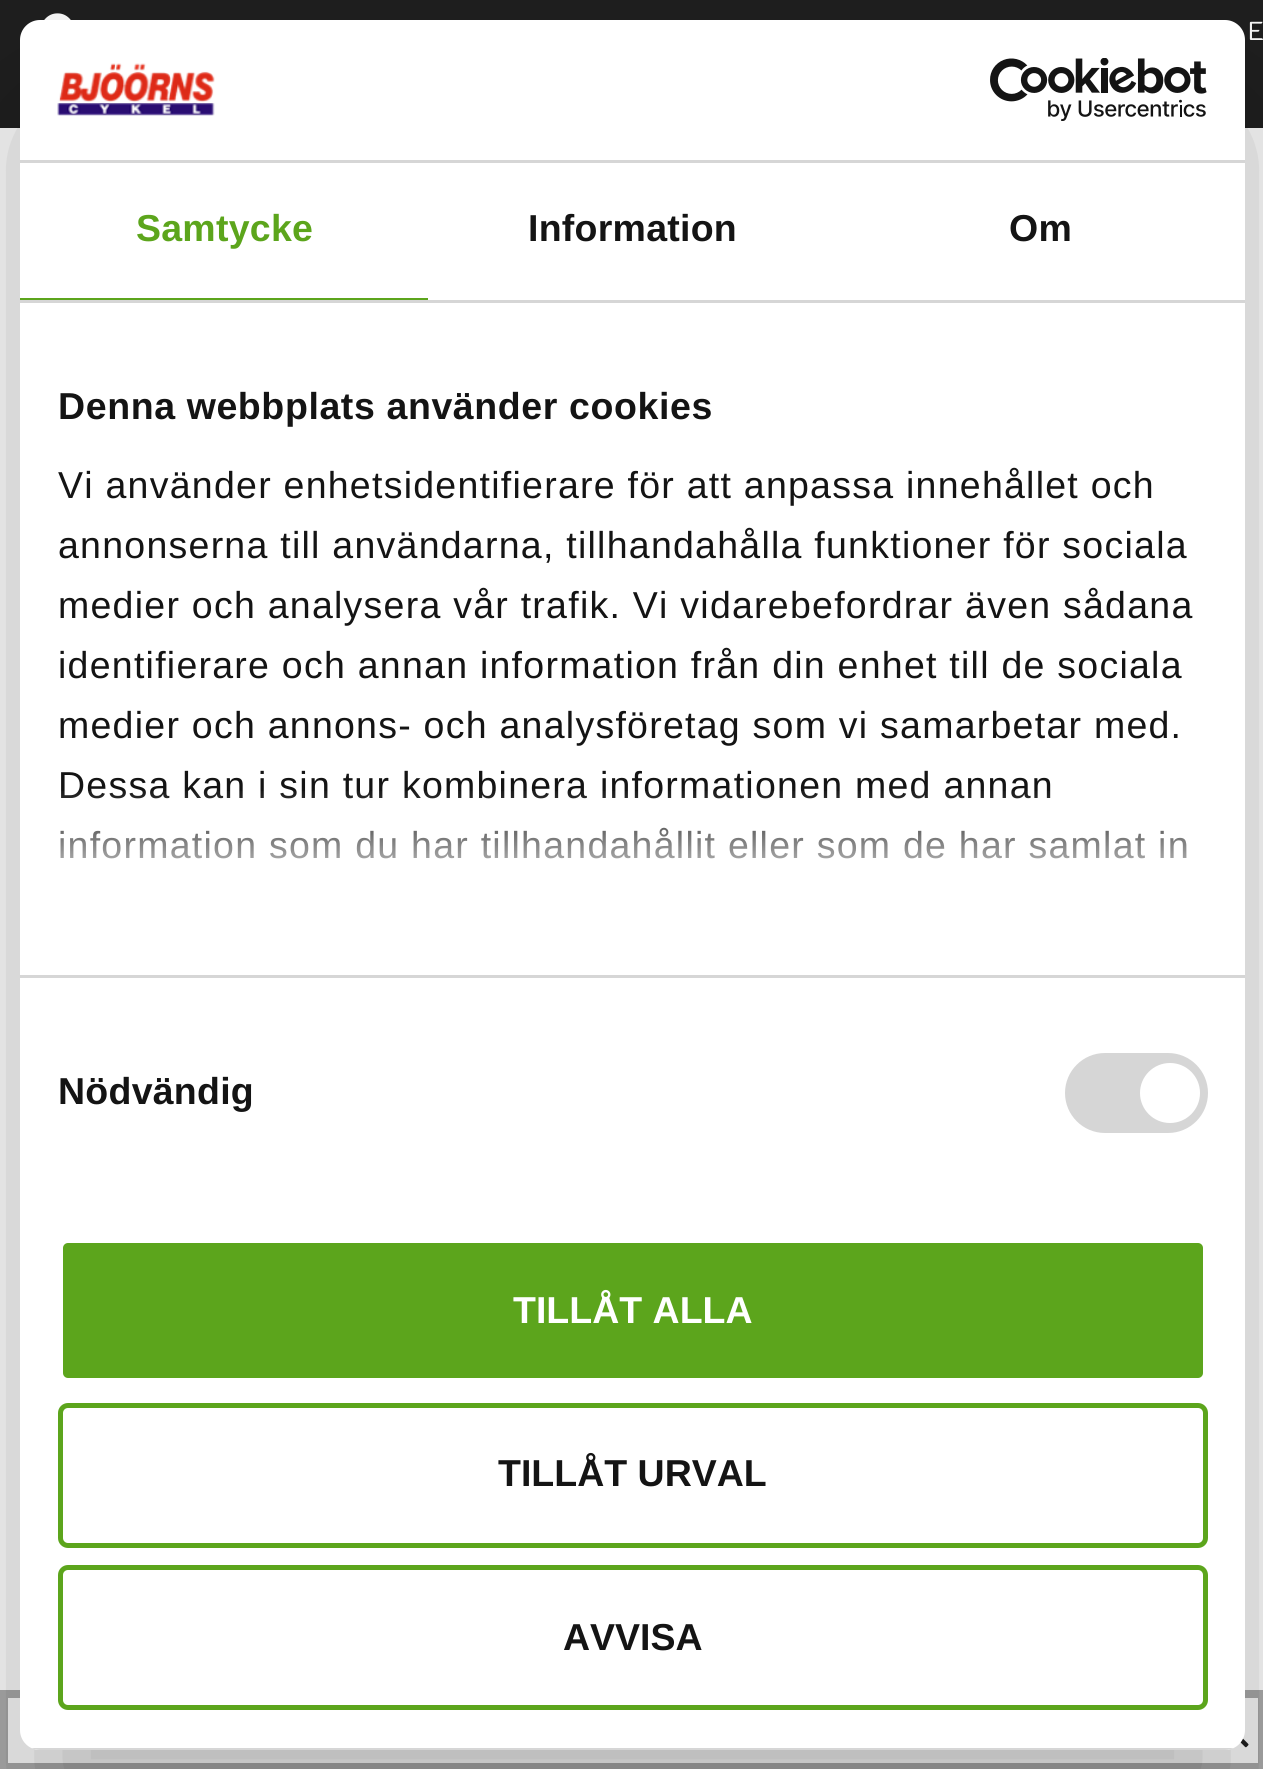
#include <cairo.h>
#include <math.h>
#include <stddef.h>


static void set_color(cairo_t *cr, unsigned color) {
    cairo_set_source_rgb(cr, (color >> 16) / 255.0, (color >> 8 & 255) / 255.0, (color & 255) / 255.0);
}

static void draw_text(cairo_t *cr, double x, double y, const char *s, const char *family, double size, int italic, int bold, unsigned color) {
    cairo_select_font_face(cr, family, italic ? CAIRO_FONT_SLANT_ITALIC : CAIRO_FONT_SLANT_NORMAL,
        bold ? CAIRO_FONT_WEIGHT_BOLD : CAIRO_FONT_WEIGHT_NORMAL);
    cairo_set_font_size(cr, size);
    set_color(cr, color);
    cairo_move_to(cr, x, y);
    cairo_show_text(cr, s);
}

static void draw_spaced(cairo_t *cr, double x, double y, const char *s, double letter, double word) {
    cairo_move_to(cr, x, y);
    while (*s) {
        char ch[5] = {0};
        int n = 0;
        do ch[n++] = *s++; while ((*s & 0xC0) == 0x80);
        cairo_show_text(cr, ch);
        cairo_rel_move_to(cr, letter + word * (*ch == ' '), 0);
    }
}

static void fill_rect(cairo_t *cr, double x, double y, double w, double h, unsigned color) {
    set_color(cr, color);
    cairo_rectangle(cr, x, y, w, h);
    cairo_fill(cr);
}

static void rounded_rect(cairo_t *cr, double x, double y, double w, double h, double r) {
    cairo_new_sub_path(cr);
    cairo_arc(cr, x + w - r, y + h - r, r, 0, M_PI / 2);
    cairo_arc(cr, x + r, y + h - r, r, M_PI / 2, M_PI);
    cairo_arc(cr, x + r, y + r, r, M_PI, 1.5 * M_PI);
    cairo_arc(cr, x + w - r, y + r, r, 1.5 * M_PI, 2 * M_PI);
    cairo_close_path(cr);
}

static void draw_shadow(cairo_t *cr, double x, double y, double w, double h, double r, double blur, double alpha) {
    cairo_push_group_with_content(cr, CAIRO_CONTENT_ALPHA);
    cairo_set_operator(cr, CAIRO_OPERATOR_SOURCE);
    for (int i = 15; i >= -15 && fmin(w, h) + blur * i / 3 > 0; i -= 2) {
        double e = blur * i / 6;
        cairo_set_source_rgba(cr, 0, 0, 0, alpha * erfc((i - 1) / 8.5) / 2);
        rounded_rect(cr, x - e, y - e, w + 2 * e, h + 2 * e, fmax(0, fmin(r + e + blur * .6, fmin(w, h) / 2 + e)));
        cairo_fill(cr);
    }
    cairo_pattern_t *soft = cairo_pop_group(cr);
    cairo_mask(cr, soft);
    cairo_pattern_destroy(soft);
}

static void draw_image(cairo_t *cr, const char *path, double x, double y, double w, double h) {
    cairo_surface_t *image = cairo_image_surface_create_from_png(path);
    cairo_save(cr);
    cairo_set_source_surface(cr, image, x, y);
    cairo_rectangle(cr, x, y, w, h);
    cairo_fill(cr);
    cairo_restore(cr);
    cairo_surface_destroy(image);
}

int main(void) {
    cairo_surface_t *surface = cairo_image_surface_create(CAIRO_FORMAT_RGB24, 1263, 1769);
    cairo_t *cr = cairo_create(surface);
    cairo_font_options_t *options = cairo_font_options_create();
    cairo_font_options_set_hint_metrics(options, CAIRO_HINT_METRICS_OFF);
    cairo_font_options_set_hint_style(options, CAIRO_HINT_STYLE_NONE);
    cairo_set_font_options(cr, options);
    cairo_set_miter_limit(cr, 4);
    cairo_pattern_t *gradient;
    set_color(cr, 0xFFFFFF);
    cairo_paint(cr);
    fill_rect(cr, 0, 0, 1263, 128, 0x1F1F1F);
    draw_image(cr, "assets/img1.png", 44, 13, 27, 7);
    cairo_select_font_face(cr, "K2D Light", CAIRO_FONT_SLANT_NORMAL, CAIRO_FONT_WEIGHT_NORMAL);
    cairo_set_font_size(cr, 26);
    set_color(cr, 0xFFFFFF);
    draw_spaced(cr, 1248, 40, "E", 1, 0);
    fill_rect(cr, 0, 1690, 1263, 79, 0xADADAD);
    fill_rect(cr, 8, 1698, 1250, 65, 0xFFFFFF);
    draw_image(cr, "assets/img2.png", 1240, 1738, 9, 10);
    set_color(cr, 0x000000);
    draw_shadow(cr, 20, 100, 1225, 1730, 20, 85, 0.3);
    set_color(cr, 0xFFFFFF);
    rounded_rect(cr, 20, 20, 1225, 1730, 20);
    cairo_fill(cr);
    fill_rect(cr, 20, 160, 1225, 3, 0xD6D6D6);
    draw_image(cr, "assets/img3.png", 57, 63, 158, 53);
    draw_image(cr, "assets/img4.png", 990, 58, 217, 63);
    fill_rect(cr, 20, 300, 1225, 3, 0xD6D6D6);
    fill_rect(cr, 20, 298, 408, 2, 0x5CA51C);
    cairo_select_font_face(cr, "Liberation Sans", CAIRO_FONT_SLANT_NORMAL, CAIRO_FONT_WEIGHT_BOLD);
    cairo_set_font_size(cr, 37.5);
    draw_spaced(cr, 136, 241, "Samtycke", 0.25, 0);
    set_color(cr, 0x141414);
    draw_spaced(cr, 528, 241, "Information", 0.25, 0);
    draw_spaced(cr, 1009, 241, "Om", 0.25, 0);
    fill_rect(cr, 20, 975, 1225, 3, 0xD6D6D6);
    set_color(cr, 0x141414);
    draw_spaced(cr, 58, 419, "Denna webbplats använder cookies", 0.6, 0);
    cairo_select_font_face(cr, "Liberation Sans", CAIRO_FONT_SLANT_NORMAL, CAIRO_FONT_WEIGHT_NORMAL);
    draw_spaced(cr, 58, 498, "Vi använder enhetsidentifierare för att anpassa innehållet och", 1.25, 0);
    draw_spaced(cr, 58, 558, "annonserna till användarna, tillhandahålla funktioner för sociala", 1.25, 0);
    draw_spaced(cr, 58, 618, "medier och analysera vår trafik. Vi vidarebefordrar även sådana", 1.25, 0);
    draw_spaced(cr, 58, 678, "identifierare och annan information från din enhet till de sociala", 1.25, 0);
    draw_spaced(cr, 58, 738, "medier och annons- och analysföretag som vi samarbetar med.", 1.25, 0);
    draw_spaced(cr, 58, 798, "Dessa kan i sin tur kombinera informationen med annan", 1.25, 0);
    draw_spaced(cr, 58, 858, "information som du har tillhandahållit eller som de har samlat in", 1.25, 0);
    gradient = cairo_pattern_create_linear(616, 975, 616, 788);
    cairo_pattern_add_color_stop_rgba(gradient, 0, 1, 1, 1, 1);
    cairo_pattern_add_color_stop_rgba(gradient, 0.5, 1, 1, 1, 0.8);
    cairo_pattern_add_color_stop_rgba(gradient, 1, 1, 1, 1, 0);
    cairo_set_source(cr, gradient);
    cairo_pattern_destroy(gradient);
    cairo_rectangle(cr, 60, 791, 1126, 68);
    cairo_fill(cr);
    cairo_select_font_face(cr, "Liberation Sans", CAIRO_FONT_SLANT_NORMAL, CAIRO_FONT_WEIGHT_BOLD);
    set_color(cr, 0x141414);
    draw_spaced(cr, 58, 1104, "Nödvändig", 0.25, 0);
    set_color(cr, 0xD6D6D6);
    rounded_rect(cr, 1065, 1053, 143, 80, 40);
    cairo_fill(cr);
    set_color(cr, 0xFFFFFF);
    cairo_arc(cr, 1170, 1093, 30, 0, 2 * M_PI);
    cairo_fill(cr);
    cairo_save(cr);
    rounded_rect(cr, 20, 20, 1225, 1730, 20);
    cairo_clip(cr);
    fill_rect(cr, 31, 1748, 1203, 2, 0xD6D6D6);
    cairo_restore(cr);
    set_color(cr, 0x5CA51C);
    rounded_rect(cr, 60.5, 1240.5, 1145, 140, 7.5);
    cairo_fill_preserve(cr);
    set_color(cr, 0xFFFFFF);
    cairo_set_line_width(cr, 5);
    cairo_stroke(cr);
    draw_text(cr, 513, 1323, "TILLÅT ALLA", "Liberation Sans", 37.5, 0, 1, 0xFFFFFF);
    rounded_rect(cr, 60.5, 1405.5, 1145, 140, 7.5);
    set_color(cr, 0x5CA51C);
    cairo_stroke(cr);
    draw_text(cr, 498, 1486, "TILLÅT URVAL", "Liberation Sans", 37.5, 0, 1, 0x141414);
    rounded_rect(cr, 60.5, 1567.5, 1145, 140, 7.5);
    set_color(cr, 0x5CA51C);
    cairo_stroke(cr);
    draw_text(cr, 563, 1650, "AVVISA", "Liberation Sans", 37.5, 0, 1, 0x141414);
    cairo_surface_write_to_png(surface, "output.png");
    cairo_font_options_destroy(options);
    cairo_destroy(cr);
    cairo_surface_destroy(surface);
    return 0;
}
